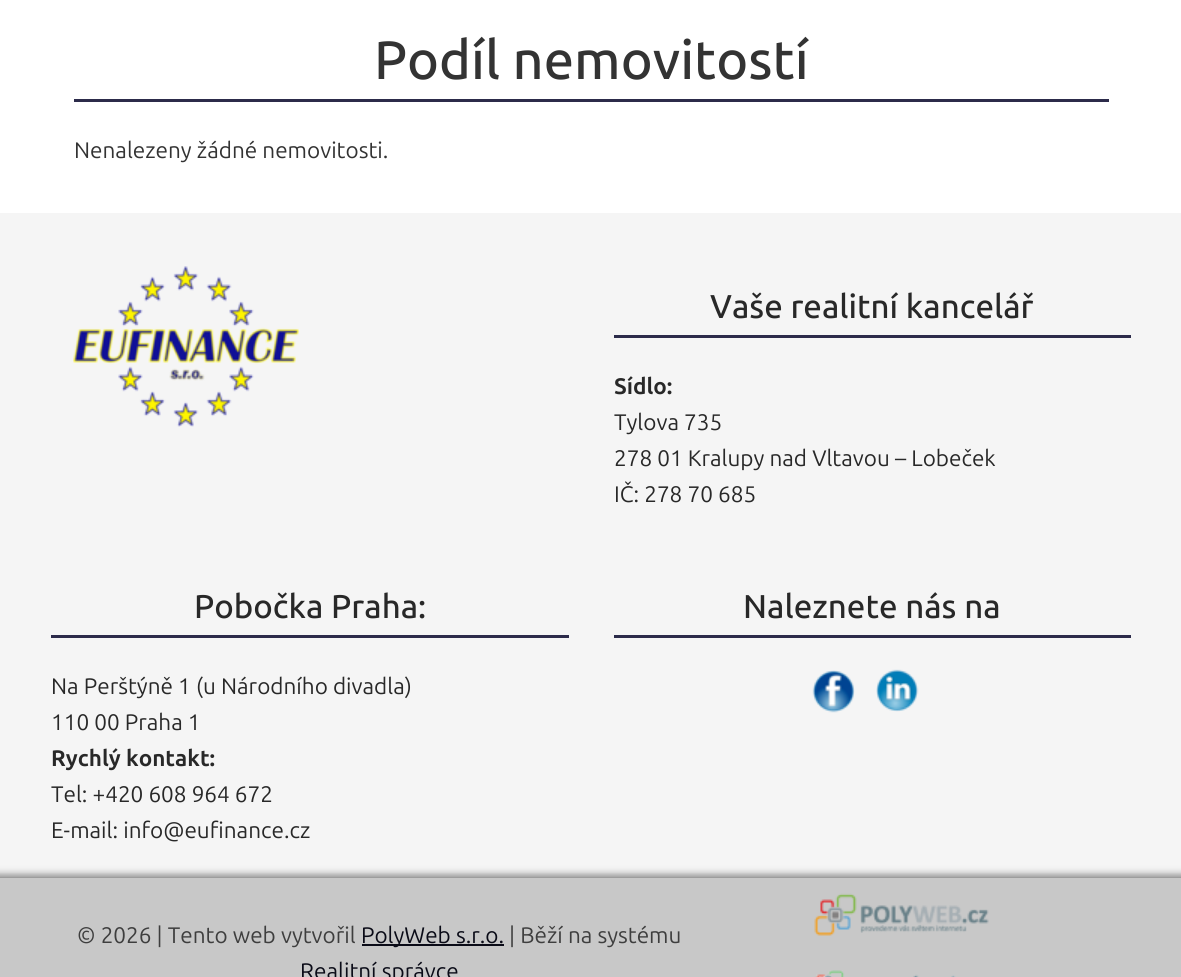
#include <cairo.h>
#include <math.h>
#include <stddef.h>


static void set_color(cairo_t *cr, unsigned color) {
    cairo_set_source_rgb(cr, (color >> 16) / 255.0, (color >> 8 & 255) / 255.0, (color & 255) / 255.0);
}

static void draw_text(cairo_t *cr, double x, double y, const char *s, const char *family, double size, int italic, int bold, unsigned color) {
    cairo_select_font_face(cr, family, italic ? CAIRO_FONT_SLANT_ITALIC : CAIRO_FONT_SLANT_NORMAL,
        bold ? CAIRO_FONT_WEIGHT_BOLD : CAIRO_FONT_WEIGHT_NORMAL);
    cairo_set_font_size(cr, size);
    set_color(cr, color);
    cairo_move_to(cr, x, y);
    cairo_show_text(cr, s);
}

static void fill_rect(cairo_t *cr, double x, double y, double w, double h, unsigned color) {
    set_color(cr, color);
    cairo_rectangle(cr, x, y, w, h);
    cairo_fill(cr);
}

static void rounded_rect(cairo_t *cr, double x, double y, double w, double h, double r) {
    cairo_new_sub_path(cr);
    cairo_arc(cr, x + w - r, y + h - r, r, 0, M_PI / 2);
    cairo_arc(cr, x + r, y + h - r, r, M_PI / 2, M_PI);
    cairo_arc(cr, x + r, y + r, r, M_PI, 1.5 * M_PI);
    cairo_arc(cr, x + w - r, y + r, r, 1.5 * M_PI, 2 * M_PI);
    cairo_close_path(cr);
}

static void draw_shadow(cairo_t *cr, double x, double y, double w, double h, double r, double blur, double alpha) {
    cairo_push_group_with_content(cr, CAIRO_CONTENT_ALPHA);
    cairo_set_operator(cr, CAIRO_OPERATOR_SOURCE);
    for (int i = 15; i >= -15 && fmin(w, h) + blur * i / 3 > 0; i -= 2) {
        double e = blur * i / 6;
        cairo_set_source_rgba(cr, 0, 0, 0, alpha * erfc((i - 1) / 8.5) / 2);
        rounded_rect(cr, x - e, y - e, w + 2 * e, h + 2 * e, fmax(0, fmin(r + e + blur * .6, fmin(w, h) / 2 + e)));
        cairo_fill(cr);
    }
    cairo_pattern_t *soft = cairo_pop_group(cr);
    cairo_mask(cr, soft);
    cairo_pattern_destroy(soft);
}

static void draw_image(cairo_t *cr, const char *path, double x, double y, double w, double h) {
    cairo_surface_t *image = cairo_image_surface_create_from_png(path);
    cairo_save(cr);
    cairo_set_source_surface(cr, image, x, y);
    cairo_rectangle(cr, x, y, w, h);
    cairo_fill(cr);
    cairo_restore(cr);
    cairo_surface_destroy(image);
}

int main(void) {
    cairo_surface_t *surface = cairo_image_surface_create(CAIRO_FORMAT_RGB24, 1181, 977);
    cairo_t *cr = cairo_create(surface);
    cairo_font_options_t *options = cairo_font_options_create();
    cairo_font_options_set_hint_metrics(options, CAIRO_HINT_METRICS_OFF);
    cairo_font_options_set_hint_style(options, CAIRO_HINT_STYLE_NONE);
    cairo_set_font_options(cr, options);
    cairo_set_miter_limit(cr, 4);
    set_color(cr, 0xFFFFFF);
    cairo_paint(cr);
    fill_rect(cr, 74, 99, 1035, 3, 0x2C2B4A);
    draw_text(cr, 374, 79, "Podíl nemovitostí", "Ubuntu Medium", 54, 0, 0, 0x333333);
    draw_text(cr, 74, 158, "Nenalezeny žádné nemovitosti.", "Ubuntu", 22.5, 0, 0, 0x333333);
    fill_rect(cr, 0, 213, 1181, 665, 0xF5F5F5);
    draw_image(cr, "assets/img1.png", 73, 266, 226, 161);
    fill_rect(cr, 614, 335, 517, 3, 0x2C2B4A);
    draw_text(cr, 710, 318, "Vaše realitní kancelář", "Ubuntu Medium", 33, 0, 0, 0x282828);
    draw_text(cr, 614, 394, "Sídlo:", "Ubuntu", 22.5, 0, 1, 0x282828);
    draw_text(cr, 614, 430, "Tylova 735", "Ubuntu", 22.5, 0, 0, 0x282828);
    draw_text(cr, 614, 466, "278 01 Kralupy nad Vltavou – Lobeček", "Ubuntu", 22.5, 0, 0, 0x282828);
    draw_text(cr, 614, 502, "IČ: 278 70 685", "Ubuntu", 22.5, 0, 0, 0x282828);
    fill_rect(cr, 51, 635, 518, 3, 0x2C2B4A);
    draw_text(cr, 194, 618, "Pobočka Praha:", "Ubuntu Medium", 33, 0, 0, 0x282828);
    draw_text(cr, 51, 694, "Na Perštýně 1 (u Národního divadla)", "Ubuntu", 22.5, 0, 0, 0x282828);
    draw_text(cr, 51, 730, "110 00 Praha 1", "Ubuntu", 22.5, 0, 0, 0x282828);
    draw_text(cr, 51, 766, "Rychlý kontakt:", "Ubuntu", 22.5, 0, 1, 0x282828);
    draw_text(cr, 51, 802, "Tel: +420 608 964 672", "Ubuntu", 22.5, 0, 0, 0x282828);
    draw_text(cr, 51, 838, "E-mail: info@eufinance.cz", "Ubuntu", 22.5, 0, 0, 0x282828);
    fill_rect(cr, 614, 635, 517, 3, 0x2C2B4A);
    draw_text(cr, 743, 618, "Naleznete nás na", "Ubuntu Medium", 33, 0, 0, 0x282828);
    draw_image(cr, "assets/img2.png", 812, 670, 43, 43);
    draw_image(cr, "assets/img3.png", 876, 669, 43, 43);
    set_color(cr, 0x313131);
    draw_shadow(cr, -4, 875, 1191, 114, 0, 4, 0.6);
    fill_rect(cr, 0, 878, 1181, 99, 0xC8C8C8);
    draw_text(cr, 77, 943, "© 2026 | Tento web vytvořil", "Ubuntu", 22.5, 0, 0, 0x3E3E3E);
    fill_rect(cr, 362, 944, 142, 2, 0x0A0B17);
    draw_text(cr, 361, 943, "PolyWeb s.r.o.", "Ubuntu", 22.5, 0, 0, 0x0A0B17);
    draw_text(cr, 509, 943, "| Běží na systému", "Ubuntu", 22.5, 0, 0, 0x3E3E3E);
    draw_text(cr, 300, 979, "Realitní správce", "Ubuntu", 22.5, 0, 0, 0x0A0B17);
    draw_image(cr, "assets/img4.png", 814, 893, 175, 43);
    draw_image(cr, "assets/img5.png", 815, 970, 141, 7);
    cairo_surface_write_to_png(surface, "output.png");
    cairo_font_options_destroy(options);
    cairo_destroy(cr);
    cairo_surface_destroy(surface);
    return 0;
}
